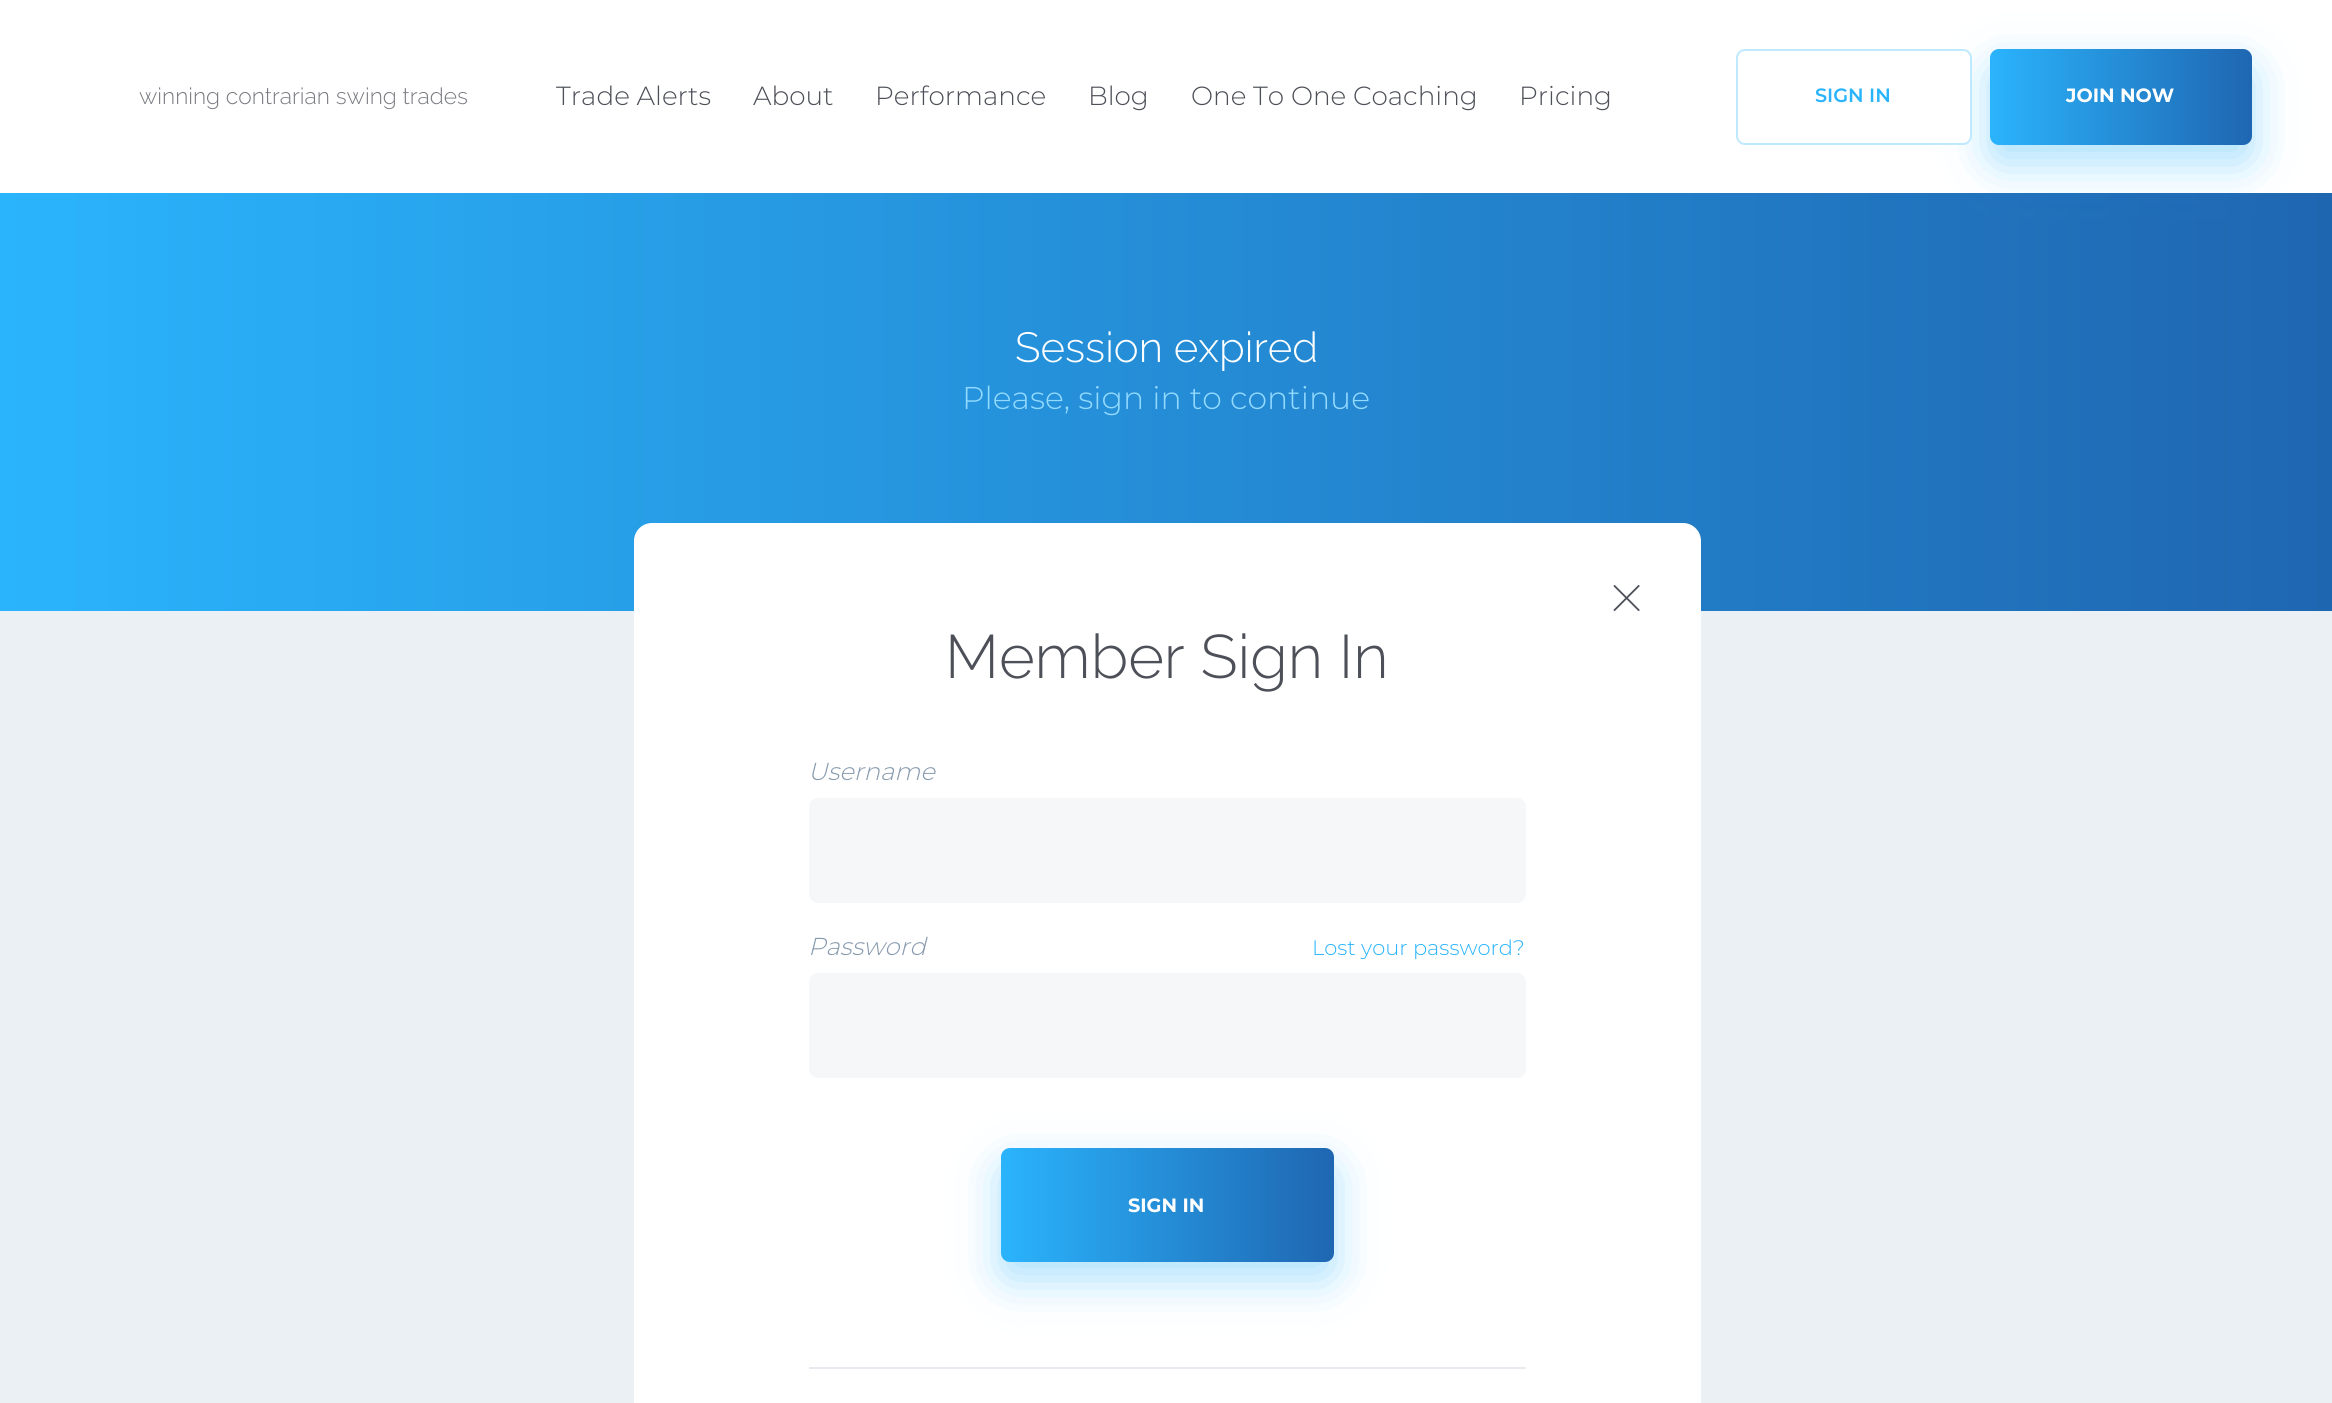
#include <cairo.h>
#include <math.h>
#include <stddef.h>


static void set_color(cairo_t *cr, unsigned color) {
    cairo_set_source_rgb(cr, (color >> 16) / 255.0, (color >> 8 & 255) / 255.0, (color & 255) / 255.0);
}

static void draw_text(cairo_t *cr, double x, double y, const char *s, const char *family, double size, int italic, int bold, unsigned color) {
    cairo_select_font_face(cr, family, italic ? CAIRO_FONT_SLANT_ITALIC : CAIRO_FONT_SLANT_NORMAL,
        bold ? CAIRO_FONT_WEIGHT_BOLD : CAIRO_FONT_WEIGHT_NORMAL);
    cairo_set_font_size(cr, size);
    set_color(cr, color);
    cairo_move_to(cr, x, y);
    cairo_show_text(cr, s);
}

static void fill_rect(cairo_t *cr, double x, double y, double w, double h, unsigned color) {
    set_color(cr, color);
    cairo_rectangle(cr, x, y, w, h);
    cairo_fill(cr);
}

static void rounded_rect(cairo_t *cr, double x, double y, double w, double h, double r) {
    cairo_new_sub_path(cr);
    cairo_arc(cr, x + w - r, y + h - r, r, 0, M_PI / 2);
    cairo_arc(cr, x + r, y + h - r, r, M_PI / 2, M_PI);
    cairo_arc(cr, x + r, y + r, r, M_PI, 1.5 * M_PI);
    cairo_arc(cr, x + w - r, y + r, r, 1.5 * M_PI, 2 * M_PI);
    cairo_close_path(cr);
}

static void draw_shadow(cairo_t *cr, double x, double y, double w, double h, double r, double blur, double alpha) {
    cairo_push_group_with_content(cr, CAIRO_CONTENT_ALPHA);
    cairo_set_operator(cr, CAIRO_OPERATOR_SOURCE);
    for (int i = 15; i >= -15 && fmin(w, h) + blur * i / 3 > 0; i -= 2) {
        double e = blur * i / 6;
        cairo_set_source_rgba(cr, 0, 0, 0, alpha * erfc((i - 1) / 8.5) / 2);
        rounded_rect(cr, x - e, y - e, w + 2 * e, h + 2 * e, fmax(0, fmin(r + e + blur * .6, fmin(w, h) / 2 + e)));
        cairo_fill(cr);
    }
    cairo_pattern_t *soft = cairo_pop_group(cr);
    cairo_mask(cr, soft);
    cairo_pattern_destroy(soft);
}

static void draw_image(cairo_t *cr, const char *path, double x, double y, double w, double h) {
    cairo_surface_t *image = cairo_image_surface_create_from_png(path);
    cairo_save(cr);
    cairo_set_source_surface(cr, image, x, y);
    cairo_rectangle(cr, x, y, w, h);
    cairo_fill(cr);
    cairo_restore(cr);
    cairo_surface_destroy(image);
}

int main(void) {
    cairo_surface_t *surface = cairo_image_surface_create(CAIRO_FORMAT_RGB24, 2332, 1403);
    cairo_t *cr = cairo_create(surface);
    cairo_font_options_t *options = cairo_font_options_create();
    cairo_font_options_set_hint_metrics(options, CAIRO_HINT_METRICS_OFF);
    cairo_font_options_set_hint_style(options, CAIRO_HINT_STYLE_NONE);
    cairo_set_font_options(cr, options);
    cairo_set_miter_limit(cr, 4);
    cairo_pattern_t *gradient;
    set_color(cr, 0xFFFFFF);
    cairo_paint(cr);
    draw_text(cr, 139, 104, "winning contrarian swing trades", "Raleway Light", 22.75, 0, 0, 0x7A7C82);
    draw_text(cr, 556, 105, "Trade Alerts", "Montserrat Light", 26.25, 0, 0, 0x4D5058);
    draw_text(cr, 753, 105, "About", "Montserrat Light", 26.25, 0, 0, 0x4D5058);
    draw_text(cr, 875, 105, "Performance", "Montserrat Light", 26.25, 0, 0, 0x4D5058);
    draw_text(cr, 1088, 105, "Blog", "Montserrat Light", 26.25, 0, 0, 0x4D5058);
    draw_text(cr, 1191, 105, "One To One Coaching", "Montserrat Light", 26.25, 0, 0, 0x4D5058);
    draw_text(cr, 1519, 105, "Pricing", "Montserrat Light", 26.25, 0, 0, 0x4D5058);
    gradient = cairo_pattern_create_linear(0, 358, 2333, 358);
    cairo_pattern_add_color_stop_rgba(gradient, 0, 0.165, 0.706, 0.988, 1);
    cairo_pattern_add_color_stop_rgba(gradient, 1, 0.122, 0.4, 0.694, 1);
    cairo_set_source(cr, gradient);
    cairo_pattern_destroy(gradient);
    cairo_rectangle(cr, 0, 193, 2332, 330);
    cairo_fill(cr);
    set_color(cr, 0x2AB4FC);
    draw_shadow(cr, 1990, 67, 262, 96, 9, 22, 0.4);
    set_color(cr, 0xFFFFFF);
    rounded_rect(cr, 1736, 49, 236, 96, 9);
    cairo_fill(cr);
    rounded_rect(cr, 1737, 50, 234, 94, 8);
    cairo_set_source_rgba(cr, 0.165, 0.706, 0.988, 0.3);
    cairo_stroke(cr);
    draw_text(cr, 1815, 102, "SIGN IN", "Montserrat SemiBold", 19.25, 0, 0, 0x2AB4FC);
    gradient = cairo_pattern_create_linear(1990, 97, 2252, 97);
    cairo_pattern_add_color_stop_rgba(gradient, 0, 0.165, 0.706, 0.988, 1);
    cairo_pattern_add_color_stop_rgba(gradient, 1, 0.122, 0.4, 0.694, 1);
    cairo_set_source(cr, gradient);
    cairo_pattern_destroy(gradient);
    rounded_rect(cr, 1990, 49, 262, 96, 9);
    cairo_fill(cr);
    draw_text(cr, 2066, 102, "JOIN NOW", "Montserrat", 19.25, 0, 1, 0xFFFFFF);
    draw_text(cr, 1015, 362, "Session expired", "Raleway Light", 42, 0, 0, 0xFFFFFF);
    draw_text(cr, 962, 409, "Please, sign in to continue", "Montserrat Light", 31.5, 0, 0, 0x93DAFF);
    fill_rect(cr, 0, 611, 2332, 792, 0xEBF0F4);
    gradient = cairo_pattern_create_linear(0, 567, 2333, 567);
    cairo_pattern_add_color_stop_rgba(gradient, 0, 0.165, 0.706, 0.988, 1);
    cairo_pattern_add_color_stop_rgba(gradient, 1, 0.122, 0.4, 0.694, 1);
    cairo_set_source(cr, gradient);
    cairo_pattern_destroy(gradient);
    cairo_rectangle(cr, 0, 523, 2332, 88);
    cairo_fill(cr);
    set_color(cr, 0xFFFFFF);
    rounded_rect(cr, 634, 523, 1067, 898, 18);
    cairo_fill(cr);
    draw_image(cr, "assets/img1.png", 1613, 585, 27, 26);
    draw_text(cr, 945, 678, "Member Sign In", "Raleway Light", 61.25, 0, 0, 0x4D5058);
    draw_text(cr, 808, 780, "Username", "Montserrat Light", 24.5, 1, 0, 0x879AAE);
    set_color(cr, 0xF5F7F9);
    rounded_rect(cr, 809, 798, 717, 105, 9);
    cairo_fill(cr);
    draw_text(cr, 808, 955, "Password", "Montserrat Light", 24.5, 1, 0, 0x879AAE);
    draw_text(cr, 1312, 955, "Lost your password?", "Montserrat Light", 21, 0, 0, 0x2AB4FC);
    set_color(cr, 0xF5F7F9);
    rounded_rect(cr, 809, 973, 717, 105, 9);
    cairo_fill(cr);
    set_color(cr, 0x2AB4FC);
    draw_shadow(cr, 1001, 1166, 333, 113, 9, 22, 0.4);
    gradient = cairo_pattern_create_linear(1001, 1205, 1334, 1205);
    cairo_pattern_add_color_stop_rgba(gradient, 0, 0.165, 0.706, 0.988, 1);
    cairo_pattern_add_color_stop_rgba(gradient, 1, 0.122, 0.4, 0.694, 1);
    cairo_set_source(cr, gradient);
    cairo_pattern_destroy(gradient);
    rounded_rect(cr, 1001, 1148, 333, 114, 9);
    cairo_fill(cr);
    draw_text(cr, 1128, 1212, "SIGN IN", "Montserrat", 19.25, 0, 1, 0xFFFFFF);
    fill_rect(cr, 809, 1367, 717, 2, 0xE7EBEF);
    cairo_surface_write_to_png(surface, "output.png");
    cairo_font_options_destroy(options);
    cairo_destroy(cr);
    cairo_surface_destroy(surface);
    return 0;
}
